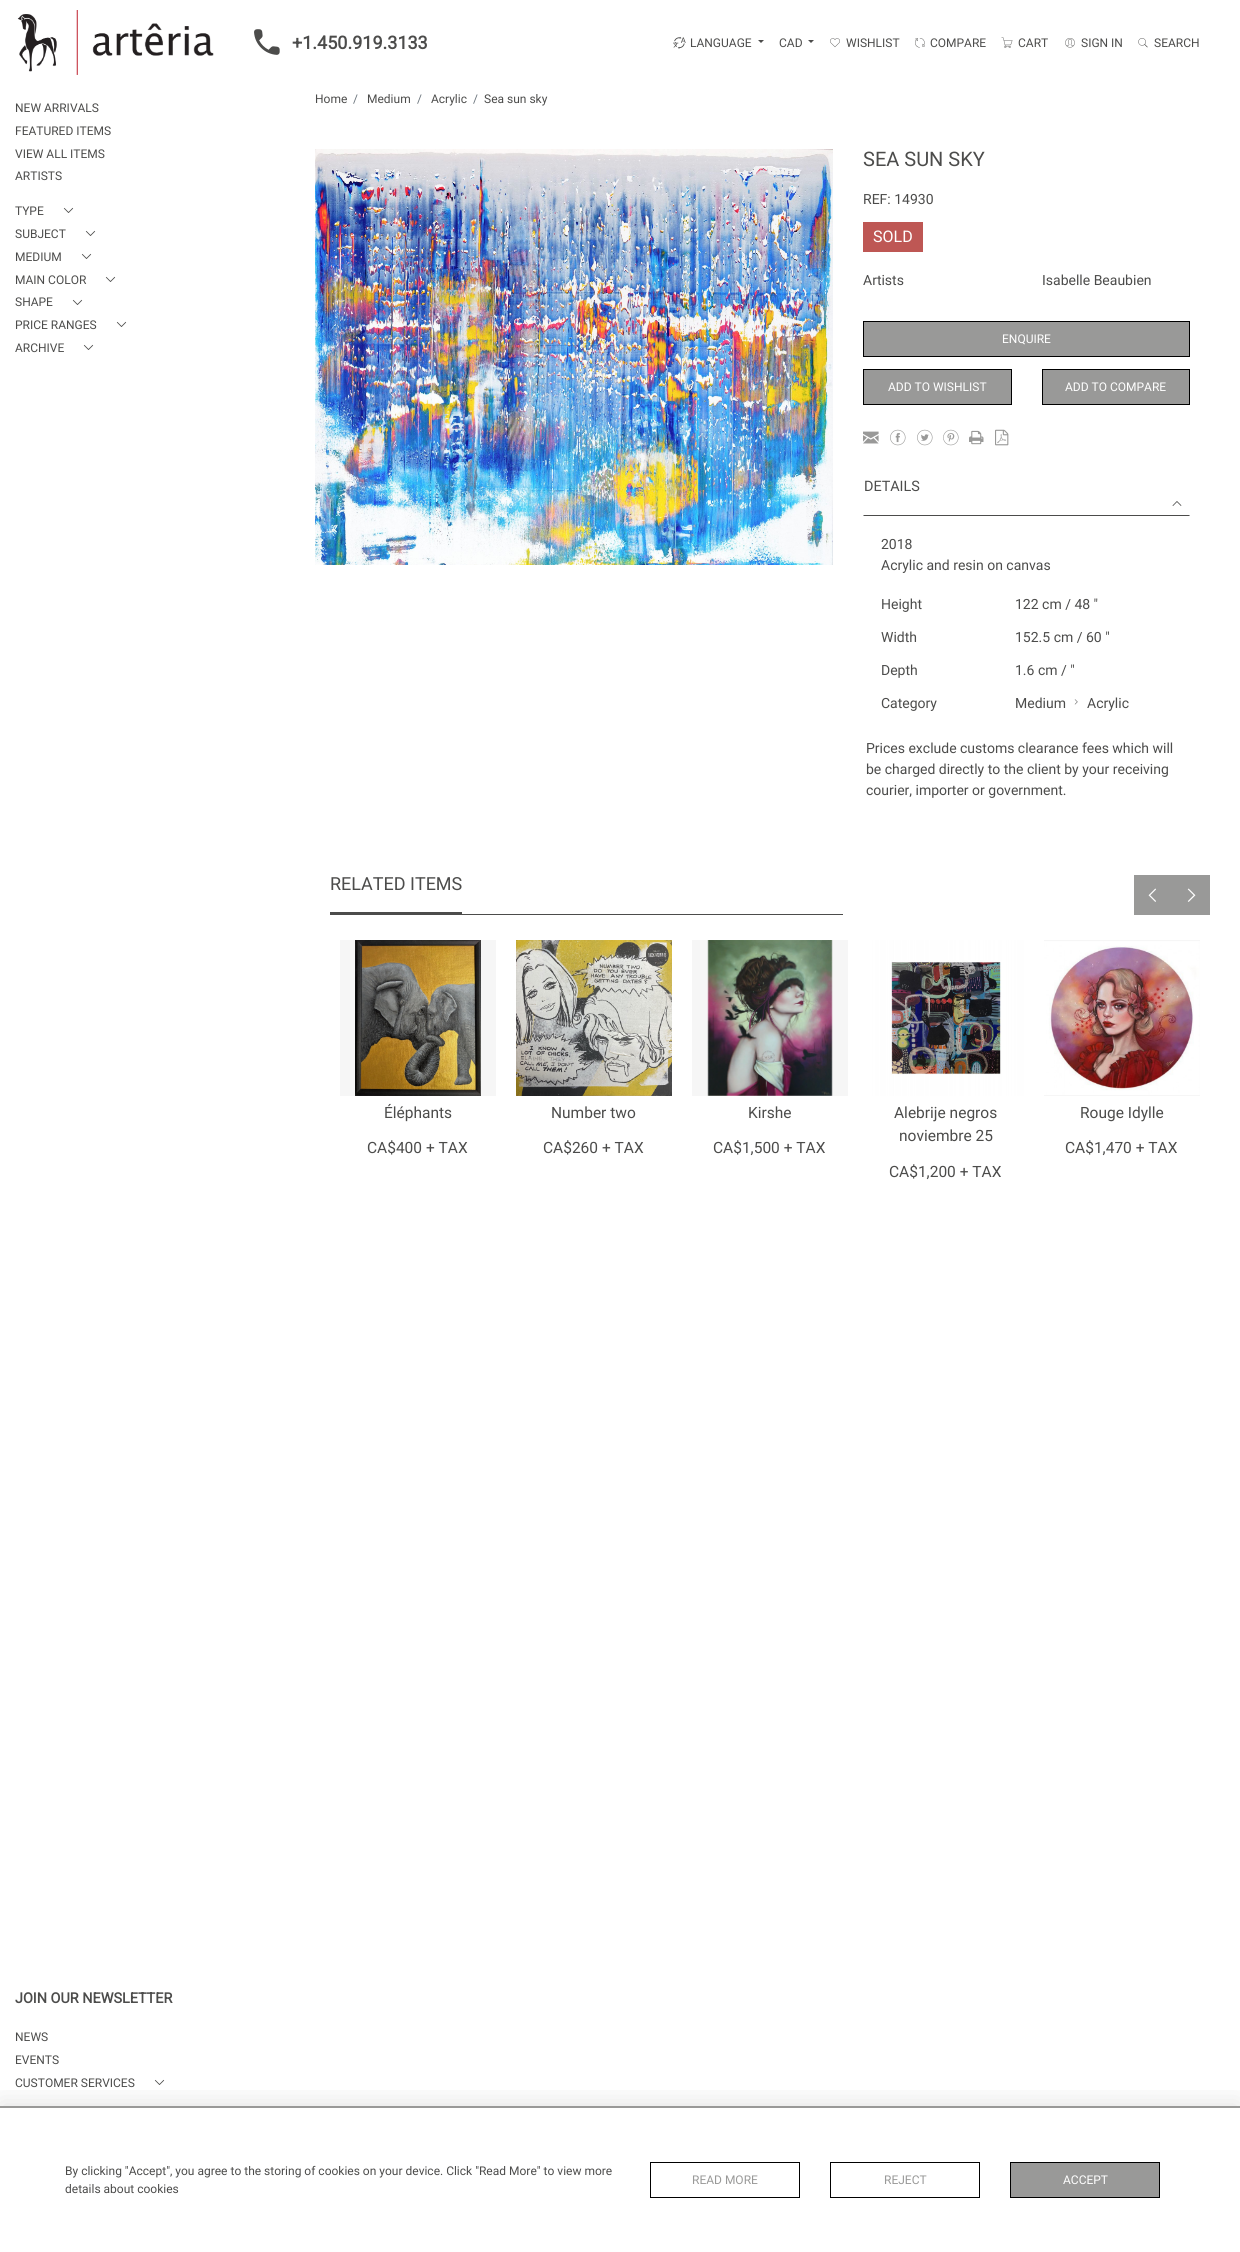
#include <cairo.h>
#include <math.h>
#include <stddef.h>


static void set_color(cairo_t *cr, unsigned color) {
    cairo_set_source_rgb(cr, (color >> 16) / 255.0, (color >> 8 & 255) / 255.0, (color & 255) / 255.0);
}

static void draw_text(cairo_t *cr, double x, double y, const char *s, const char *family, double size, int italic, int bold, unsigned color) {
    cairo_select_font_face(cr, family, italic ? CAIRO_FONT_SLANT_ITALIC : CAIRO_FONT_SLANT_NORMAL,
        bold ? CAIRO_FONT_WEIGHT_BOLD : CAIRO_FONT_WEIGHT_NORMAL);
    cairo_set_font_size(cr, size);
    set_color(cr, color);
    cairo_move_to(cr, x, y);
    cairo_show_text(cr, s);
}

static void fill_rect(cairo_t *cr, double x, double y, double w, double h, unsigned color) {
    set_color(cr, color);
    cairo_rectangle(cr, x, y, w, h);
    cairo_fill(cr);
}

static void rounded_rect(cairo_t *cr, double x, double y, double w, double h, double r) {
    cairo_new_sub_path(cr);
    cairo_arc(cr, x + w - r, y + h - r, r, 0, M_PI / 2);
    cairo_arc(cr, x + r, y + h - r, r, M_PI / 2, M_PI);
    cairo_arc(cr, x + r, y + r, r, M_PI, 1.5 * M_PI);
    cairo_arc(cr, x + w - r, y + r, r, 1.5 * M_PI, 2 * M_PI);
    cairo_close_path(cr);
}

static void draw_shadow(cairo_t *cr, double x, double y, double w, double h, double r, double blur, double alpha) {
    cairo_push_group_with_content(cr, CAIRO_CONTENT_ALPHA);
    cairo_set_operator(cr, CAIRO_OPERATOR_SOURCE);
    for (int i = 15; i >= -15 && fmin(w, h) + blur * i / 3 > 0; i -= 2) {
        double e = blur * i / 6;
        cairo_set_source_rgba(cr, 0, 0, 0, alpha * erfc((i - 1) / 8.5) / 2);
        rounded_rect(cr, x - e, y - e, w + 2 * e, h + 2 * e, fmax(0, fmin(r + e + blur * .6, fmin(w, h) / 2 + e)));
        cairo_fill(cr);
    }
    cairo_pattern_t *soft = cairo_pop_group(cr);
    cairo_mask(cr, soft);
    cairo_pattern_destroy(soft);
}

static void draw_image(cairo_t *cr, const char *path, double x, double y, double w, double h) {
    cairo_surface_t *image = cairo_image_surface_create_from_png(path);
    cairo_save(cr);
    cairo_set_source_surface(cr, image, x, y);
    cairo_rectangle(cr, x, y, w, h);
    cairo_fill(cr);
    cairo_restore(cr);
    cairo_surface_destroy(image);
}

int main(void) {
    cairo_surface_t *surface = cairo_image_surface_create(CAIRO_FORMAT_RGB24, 1240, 2252);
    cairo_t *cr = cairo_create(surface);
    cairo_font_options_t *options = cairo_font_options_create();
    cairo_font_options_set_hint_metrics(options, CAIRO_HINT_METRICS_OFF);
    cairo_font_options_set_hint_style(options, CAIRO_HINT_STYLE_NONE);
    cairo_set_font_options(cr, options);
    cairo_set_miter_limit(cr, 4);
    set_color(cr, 0xFFFFFF);
    cairo_paint(cr);
    draw_image(cr, "assets/img1.png", 17, 10, 197, 65);
    draw_image(cr, "assets/img2.png", 254, 29, 26, 26);
    draw_text(cr, 292, 49, "+1.450.919.3133", "Roboto", 18, 0, 1, 0x4C4C4B);
    draw_image(cr, "assets/img3.png", 673, 36, 13, 13);
    draw_text(cr, 690, 47, "LANGUAGE", "Roboto", 12, 0, 0, 0x4C4C4B);
    cairo_new_path(cr);
    cairo_move_to(cr, 758, 40);
    cairo_line_to(cr, 764, 40);
    cairo_line_to(cr, 761, 43);
    cairo_close_path(cr);
    cairo_fill(cr);
    draw_text(cr, 779, 47, "CAD", "Roboto", 12, 0, 0, 0x4C4C4B);
    cairo_new_path(cr);
    cairo_move_to(cr, 808, 40);
    cairo_line_to(cr, 814, 40);
    cairo_line_to(cr, 811, 43);
    cairo_close_path(cr);
    cairo_fill(cr);
    draw_image(cr, "assets/img4.png", 830, 38, 10, 10);
    draw_text(cr, 846, 47, "WISHLIST", "Roboto", 12, 0, 0, 0x4C4C4B);
    draw_image(cr, "assets/img5.png", 915, 38, 10, 10);
    draw_text(cr, 930, 47, "COMPARE", "Roboto", 12, 0, 0, 0x4C4C4B);
    draw_image(cr, "assets/img6.png", 1001, 37, 12, 11);
    draw_text(cr, 1018, 47, "CART", "Roboto", 12, 0, 0, 0x4C4C4B);
    draw_image(cr, "assets/img7.png", 1065, 38, 10, 10);
    draw_text(cr, 1081, 47, "SIGN IN", "Roboto", 12, 0, 0, 0x4C4C4B);
    draw_image(cr, "assets/img8.png", 1138, 38, 10, 10);
    draw_text(cr, 1154, 47, "SEARCH", "Roboto", 12, 0, 0, 0x4C4C4B);
    draw_text(cr, 15, 112, "NEW ARRIVALS", "Roboto", 12, 0, 0, 0x4C4C4B);
    draw_text(cr, 15, 135, "FEATURED ITEMS", "Roboto", 12, 0, 0, 0x4C4C4B);
    draw_text(cr, 15, 158, "VIEW ALL ITEMS", "Roboto", 12, 0, 0, 0x4C4C4B);
    draw_text(cr, 15, 180, "ARTISTS", "Roboto", 12, 0, 0, 0x4C4C4B);
    draw_text(cr, 15, 215, "TYPE", "Roboto", 12, 0, 0, 0x4C4C4B);
    draw_image(cr, "assets/img9.png", 63, 207, 11, 6);
    draw_text(cr, 15, 238, "SUBJECT", "Roboto", 12, 0, 0, 0x4C4C4B);
    draw_image(cr, "assets/img9.png", 85, 230, 11, 6);
    draw_text(cr, 15, 261, "MEDIUM", "Roboto", 12, 0, 0, 0x4C4C4B);
    draw_image(cr, "assets/img9.png", 81, 253, 11, 6);
    draw_text(cr, 15, 284, "MAIN COLOR", "Roboto", 12, 0, 0, 0x4C4C4B);
    draw_image(cr, "assets/img9.png", 105, 276, 11, 6);
    draw_text(cr, 15, 306, "SHAPE", "Roboto", 12, 0, 0, 0x4C4C4B);
    draw_image(cr, "assets/img9.png", 72, 299, 11, 6);
    draw_text(cr, 15, 329, "PRICE RANGES", "Roboto", 12, 0, 0, 0x4C4C4B);
    draw_image(cr, "assets/img9.png", 116, 321, 11, 6);
    draw_text(cr, 15, 352, "ARCHIVE", "Roboto", 12, 0, 0, 0x4C4C4B);
    draw_image(cr, "assets/img9.png", 83, 344, 11, 6);
    draw_text(cr, 15, 2003, "JOIN OUR NEWSLETTER", "Roboto", 14.4, 0, 1, 0x4C4C4B);
    draw_text(cr, 15, 2041, "NEWS", "Roboto", 12, 0, 0, 0x4C4C4B);
    draw_text(cr, 15, 2064, "EVENTS", "Roboto", 12, 0, 0, 0x4C4C4B);
    draw_text(cr, 15, 2087, "CUSTOMER SERVICES", "Roboto", 12, 0, 0, 0x4C4C4B);
    draw_image(cr, "assets/img9.png", 154, 2079, 11, 6);
    draw_text(cr, 315, 103, "Home", "Roboto", 12, 0, 0, 0x4C4C4B);
    draw_text(cr, 353, 103, "/", "Roboto", 12, 0, 0, 0x6C757D);
    draw_text(cr, 367, 103, "Medium", "Roboto", 12, 0, 0, 0x4C4C4B);
    draw_text(cr, 417, 103, "/", "Roboto", 12, 0, 0, 0x6C757D);
    draw_text(cr, 431, 103, "Acrylic", "Roboto", 12, 0, 0, 0x4C4C4B);
    draw_text(cr, 473, 103, "/", "Roboto", 12, 0, 0, 0x6C757D);
    draw_text(cr, 484, 103, "Sea sun sky", "Roboto", 12, 0, 0, 0x4C4C4B);
    draw_image(cr, "assets/img10.png", 315, 149, 518, 416);
    draw_text(cr, 863, 166, "SEA SUN SKY", "Roboto", 20, 0, 0, 0x4C4C4B);
    draw_text(cr, 863, 204, "REF: 14930", "Roboto", 14, 0, 0, 0x4C4C4B);
    fill_rect(cr, 863, 222, 60, 30, 0xBE5754);
    draw_text(cr, 873, 242, "SOLD", "Roboto", 16, 0, 0, 0xFFFFFF);
    draw_text(cr, 863, 285, "Artists", "Roboto", 14, 0, 0, 0x4C4C4B);
    draw_text(cr, 1042, 285, "Isabelle Beaubien", "Roboto", 14, 0, 0, 0x4C4C4B);
    set_color(cr, 0x999998);
    cairo_rectangle(cr, 863.5, 321.5, 326, 35);
    cairo_fill_preserve(cr);
    set_color(cr, 0x000000);
    cairo_set_line_width(cr, 1);
    cairo_stroke(cr);
    draw_text(cr, 1002, 343, "ENQUIRE", "Roboto", 12, 0, 0, 0xFFFFFF);
    set_color(cr, 0x999998);
    cairo_rectangle(cr, 863.5, 369.5, 148, 35);
    cairo_fill_preserve(cr);
    set_color(cr, 0x000000);
    cairo_stroke(cr);
    draw_text(cr, 888, 391, "ADD TO WISHLIST", "Roboto", 12, 0, 0, 0xFFFFFF);
    set_color(cr, 0x999998);
    cairo_rectangle(cr, 1042.5, 369.5, 147, 35);
    cairo_fill_preserve(cr);
    set_color(cr, 0x000000);
    cairo_stroke(cr);
    draw_text(cr, 1065, 391, "ADD TO COMPARE", "Roboto", 12, 0, 0, 0xFFFFFF);
    draw_image(cr, "assets/img11.png", 863, 431, 16, 13);
    draw_image(cr, "assets/img12.png", 890, 429, 16, 17);
    draw_image(cr, "assets/img13.png", 917, 429, 16, 17);
    draw_image(cr, "assets/img14.png", 943, 429, 16, 17);
    draw_image(cr, "assets/img15.png", 969, 430, 15, 15);
    draw_image(cr, "assets/img16.png", 995, 429, 14, 17);
    set_color(cr, 0x4C4C4B);
    cairo_new_path(cr);
    cairo_move_to(cr, 1190, 516);
    cairo_line_to(cr, 863, 516);
    cairo_line_to(cr, 864, 515);
    cairo_line_to(cr, 1189, 515);
    cairo_close_path(cr);
    cairo_fill(cr);
    draw_text(cr, 864, 491, "DETAILS", "Roboto", 14.4, 0, 0, 0x4C4C4B);
    draw_image(cr, "assets/img17.png", 1172, 501, 10, 5);
    draw_text(cr, 881, 549, "2018", "Roboto", 14, 0, 0, 0x4C4C4B);
    draw_text(cr, 881, 570, "Acrylic and resin on canvas", "Roboto", 14, 0, 0, 0x4C4C4B);
    draw_text(cr, 881, 609, "Height", "Roboto", 14, 0, 0, 0x4C4C4B);
    draw_text(cr, 1015, 609, "122 cm / 48 \"", "Roboto", 14, 0, 0, 0x4C4C4B);
    draw_text(cr, 881, 642, "Width", "Roboto", 14, 0, 0, 0x4C4C4B);
    draw_text(cr, 1015, 642, "152.5 cm / 60 \"", "Roboto", 14, 0, 0, 0x4C4C4B);
    draw_text(cr, 881, 675, "Depth", "Roboto", 14, 0, 0, 0x4C4C4B);
    draw_text(cr, 1015, 675, "1.6 cm / \"", "Roboto", 14, 0, 0, 0x4C4C4B);
    draw_text(cr, 881, 708, "Category", "Roboto", 14, 0, 0, 0x4C4C4B);
    draw_text(cr, 1015, 708, "Medium", "Roboto", 14, 0, 0, 0x4C4C4B);
    draw_image(cr, "assets/img18.png", 1074, 699, 4, 6);
    draw_text(cr, 1087, 708, "Acrylic", "Roboto", 14, 0, 0, 0x4C4C4B);
    draw_text(cr, 866, 753, "Prices exclude customs clearance fees which will", "Roboto", 14, 0, 0, 0x4C4C4B);
    draw_text(cr, 866, 774, "be charged directly to the client by your receiving", "Roboto", 14, 0, 0, 0x4C4C4B);
    draw_text(cr, 866, 795, "courier, importer or government.", "Roboto", 14, 0, 0, 0x4C4C4B);
    fill_rect(cr, 330, 914, 513, 1, 0x4C4C4B);
    fill_rect(cr, 330, 912, 132, 2, 0x4C4C4B);
    draw_text(cr, 330, 890, "RELATED ITEMS", "Roboto", 18, 0, 0, 0x4C4C4B);
    fill_rect(cr, 1134, 875, 76, 40, 0x999998);
    draw_image(cr, "assets/img19.png", 1148, 888, 8, 14);
    draw_image(cr, "assets/img20.png", 1187, 888, 9, 14);
    fill_rect(cr, 340, 940, 156, 156, 0xF6F6F6);
    draw_image(cr, "assets/img21.png", 355, 940, 126, 156);
    draw_text(cr, 384, 1118, "Éléphants", "Roboto", 15.5, 0, 0, 0x4C4C4B);
    draw_text(cr, 367, 1153, "CA$400 + TAX", "Roboto", 15.5, 0, 0, 0x4C4C4B);
    draw_image(cr, "assets/img22.png", 516, 940, 156, 156);
    draw_text(cr, 551, 1118, "Number two", "Roboto", 15.5, 0, 0, 0x4C4C4B);
    draw_text(cr, 543, 1153, "CA$260 + TAX", "Roboto", 15.5, 0, 0, 0x4C4C4B);
    fill_rect(cr, 692, 940, 156, 156, 0xF6F6F6);
    draw_image(cr, "assets/img23.png", 707, 940, 126, 156);
    draw_text(cr, 748, 1118, "Kirshe", "Roboto", 15.5, 0, 0, 0x4C4C4B);
    draw_text(cr, 713, 1153, "CA$1,500 + TAX", "Roboto", 15.5, 0, 0, 0x4C4C4B);
    draw_image(cr, "assets/img24.png", 868, 940, 156, 156);
    draw_text(cr, 894, 1118, "Alebrije negros", "Roboto", 15.5, 0, 0, 0x4C4C4B);
    draw_text(cr, 899, 1141, "noviembre 25", "Roboto", 15.5, 0, 0, 0x4C4C4B);
    draw_text(cr, 889, 1177, "CA$1,200 + TAX", "Roboto", 15.5, 0, 0, 0x4C4C4B);
    fill_rect(cr, 1044, 940, 156, 156, 0xF6F6F6);
    draw_image(cr, "assets/img25.png", 1044, 941, 156, 154);
    draw_text(cr, 1080, 1118, "Rouge Idylle", "Roboto", 15.5, 0, 0, 0x4C4C4B);
    draw_text(cr, 1065, 1153, "CA$1,470 + TAX", "Roboto", 15.5, 0, 0, 0x4C4C4B);
    cairo_save(cr);
    cairo_rectangle(cr, 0, 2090, 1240, 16);
    cairo_clip(cr);
    set_color(cr, 0x000000);
    draw_shadow(cr, 0, 2101, 1240, 146, 0, 13, 0.1);
    cairo_restore(cr);
    fill_rect(cr, 0, 2106, 1240, 2, 0x999998);
    draw_text(cr, 65, 2175, "By clicking \"Accept\", you agree to the storing of cookies on your device. Click \"Read More\" to view more", "Roboto", 12, 0, 0, 0x4C4C4B);
    draw_text(cr, 65, 2193, "details about cookies", "Roboto", 12, 0, 0, 0x4C4C4B);
    cairo_rectangle(cr, 650.5, 2162.5, 149, 35);
    set_color(cr, 0x000000);
    cairo_stroke(cr);
    draw_text(cr, 692, 2184, "READ MORE", "Roboto", 12, 0, 0, 0x999998);
    cairo_rectangle(cr, 830.5, 2162.5, 149, 35);
    set_color(cr, 0x000000);
    cairo_stroke(cr);
    draw_text(cr, 884, 2184, "REJECT", "Roboto", 12, 0, 0, 0x999998);
    cairo_rectangle(cr, 1010.5, 2162.5, 149, 35);
    cairo_fill_preserve(cr);
    set_color(cr, 0x000000);
    cairo_stroke(cr);
    draw_text(cr, 1063, 2184, "ACCEPT", "Roboto", 12, 0, 0, 0xFFFFFF);
    cairo_surface_write_to_png(surface, "output.png");
    cairo_font_options_destroy(options);
    cairo_destroy(cr);
    cairo_surface_destroy(surface);
    return 0;
}
